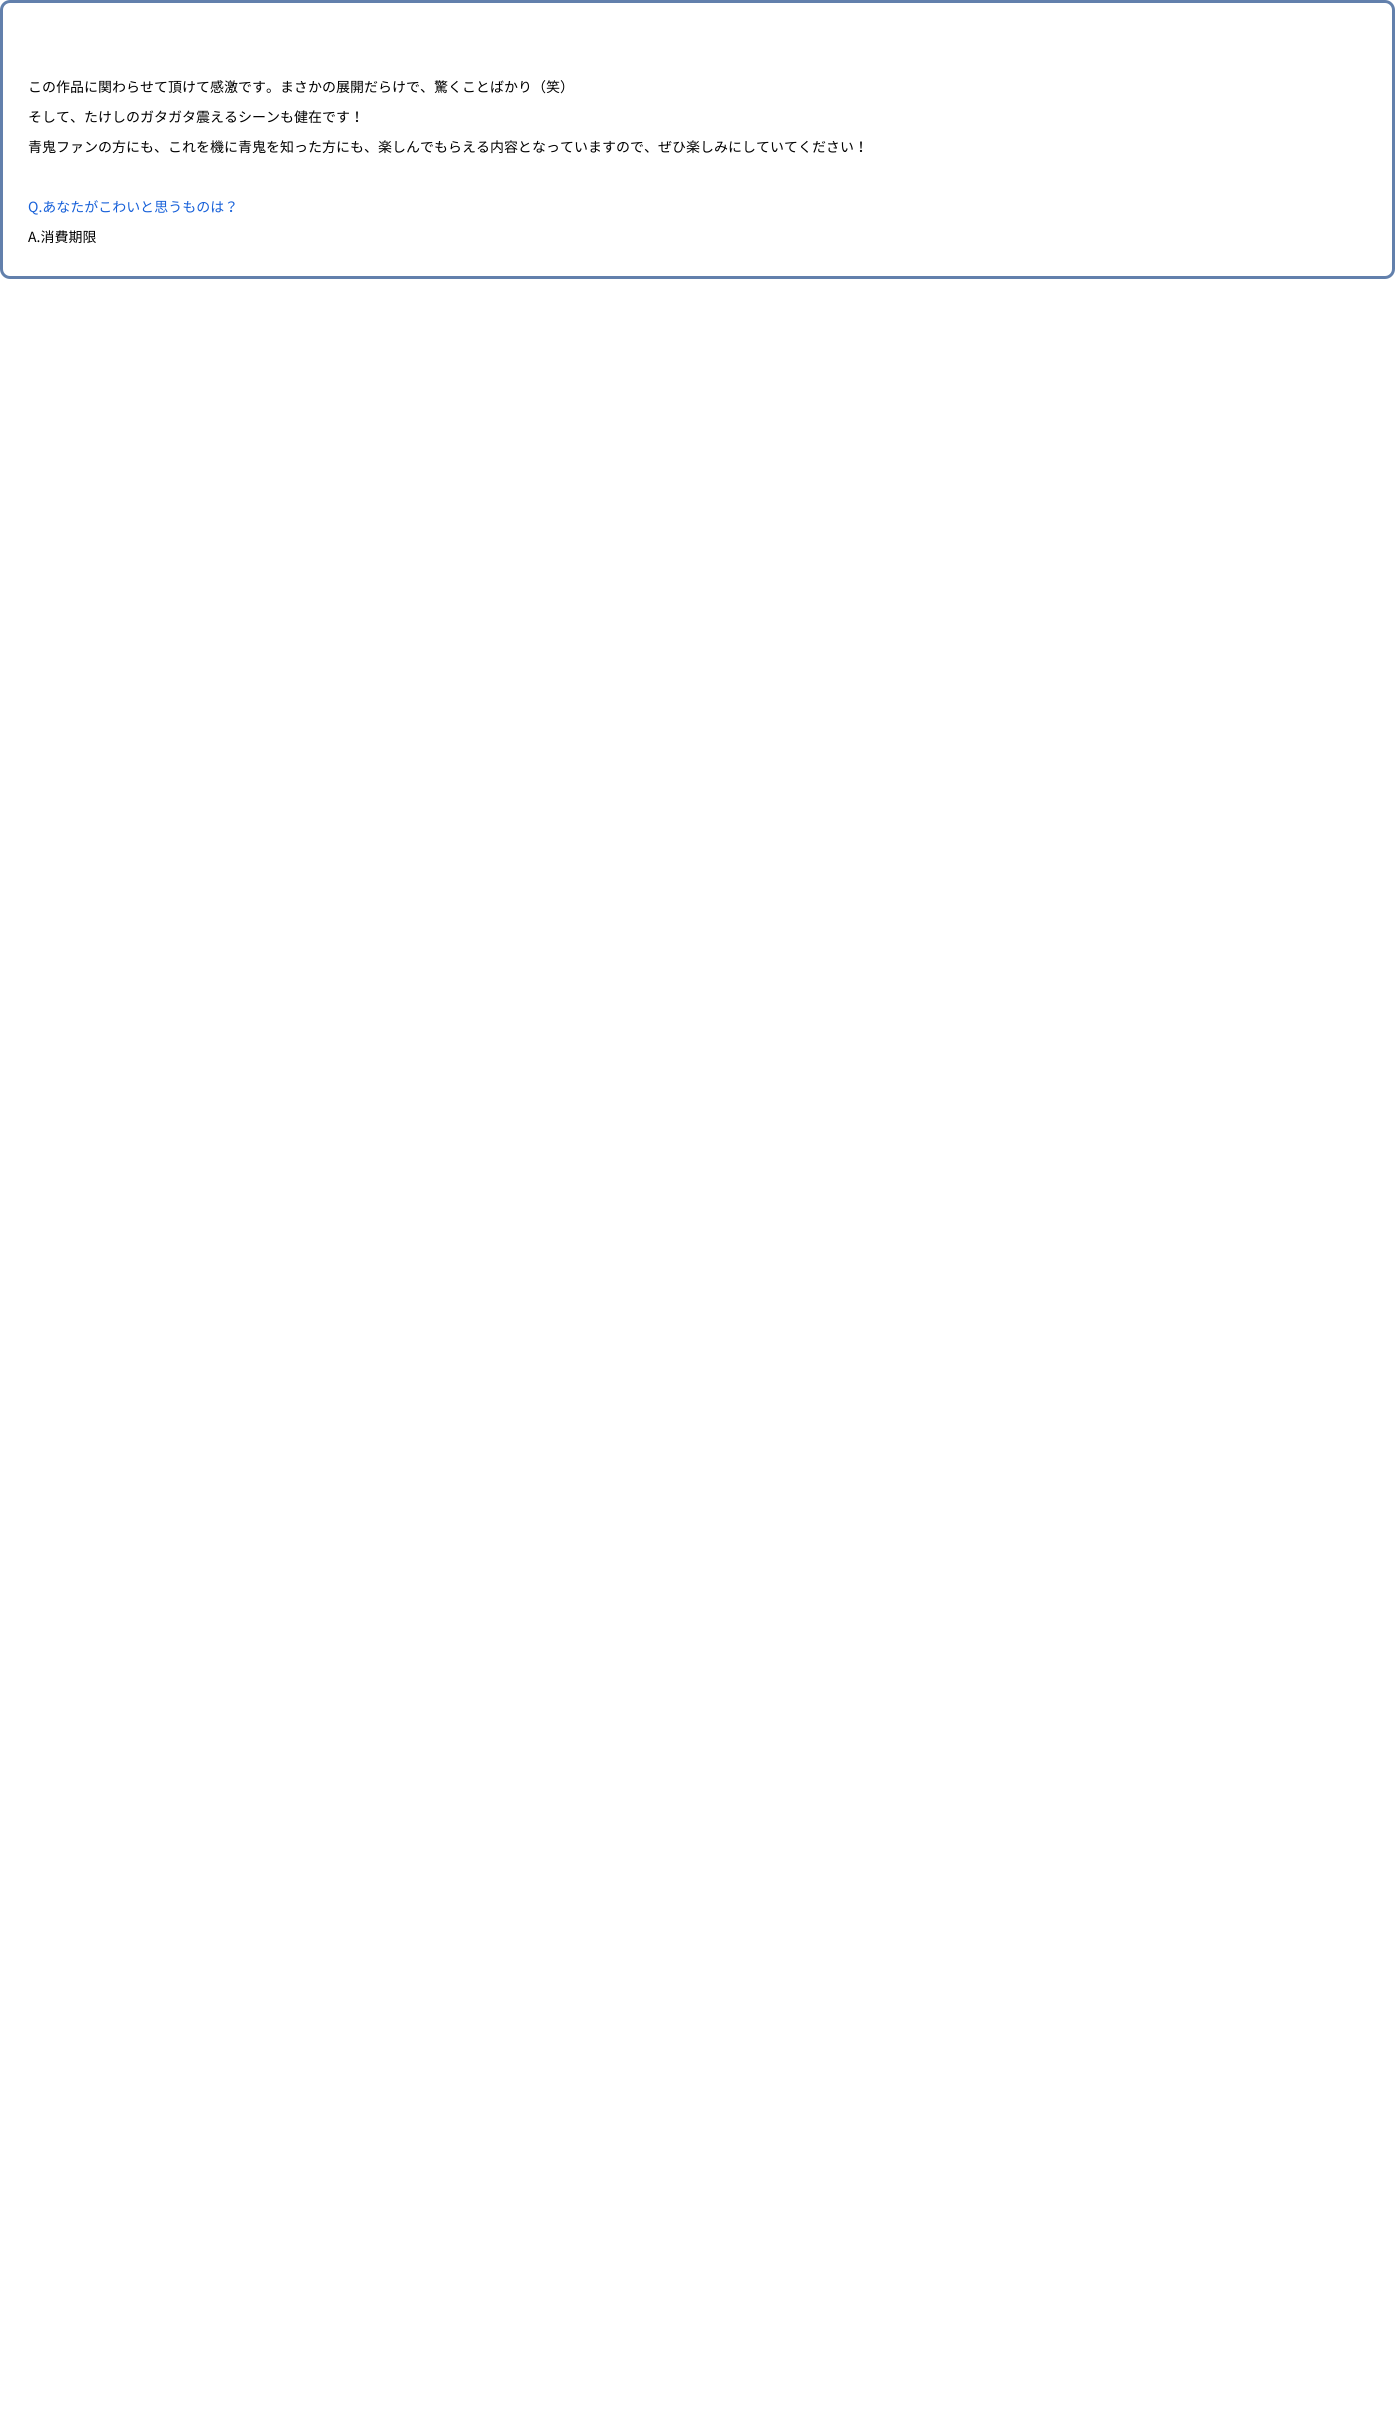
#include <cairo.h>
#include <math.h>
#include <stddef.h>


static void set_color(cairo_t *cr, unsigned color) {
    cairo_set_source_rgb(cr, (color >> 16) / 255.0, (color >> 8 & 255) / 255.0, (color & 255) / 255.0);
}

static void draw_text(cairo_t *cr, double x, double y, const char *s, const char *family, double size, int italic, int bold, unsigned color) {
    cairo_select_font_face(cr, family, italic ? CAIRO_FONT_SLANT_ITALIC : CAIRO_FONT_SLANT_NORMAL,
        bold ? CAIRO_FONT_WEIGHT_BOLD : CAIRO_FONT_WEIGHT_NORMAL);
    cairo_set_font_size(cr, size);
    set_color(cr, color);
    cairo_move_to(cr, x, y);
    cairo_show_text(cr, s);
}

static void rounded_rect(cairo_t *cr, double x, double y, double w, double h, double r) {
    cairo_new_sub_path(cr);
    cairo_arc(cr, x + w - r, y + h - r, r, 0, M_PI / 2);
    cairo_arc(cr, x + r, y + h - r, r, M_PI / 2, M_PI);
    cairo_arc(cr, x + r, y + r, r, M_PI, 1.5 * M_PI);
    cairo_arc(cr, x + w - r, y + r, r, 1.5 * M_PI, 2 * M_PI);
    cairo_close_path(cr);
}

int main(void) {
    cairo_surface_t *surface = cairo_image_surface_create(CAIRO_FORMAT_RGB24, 1395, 2410);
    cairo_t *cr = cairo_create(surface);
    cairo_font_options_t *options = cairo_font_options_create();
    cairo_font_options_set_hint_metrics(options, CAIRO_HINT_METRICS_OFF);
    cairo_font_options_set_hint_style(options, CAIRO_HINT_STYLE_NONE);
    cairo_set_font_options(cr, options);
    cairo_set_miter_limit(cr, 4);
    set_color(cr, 0xFFFFFF);
    cairo_paint(cr);
    rounded_rect(cr, 1.5, 1.5, 1392, 276, 8.5);
    set_color(cr, 0x6280AC);
    cairo_set_line_width(cr, 3);
    cairo_stroke(cr);
    draw_text(cr, 28, 92, "この作品に関わらせて頂けて感激です。まさかの展開だらけで、驚くことばかり（笑）", "Noto Sans JP", 14, 0, 0, 0x000000);
    draw_text(cr, 28, 122, "そして、たけしのガタガタ震えるシーンも健在です！", "Noto Sans JP", 14, 0, 0, 0x000000);
    draw_text(cr, 28, 152, "青鬼ファンの方にも、これを機に青鬼を知った方にも、楽しんでもらえる内容となっていますので、ぜひ楽しみにしていてください！", "Noto Sans JP", 14, 0, 0, 0x000000);
    draw_text(cr, 28, 212, "Q.あなたがこわいと思うものは？", "Noto Sans JP", 14, 0, 0, 0x1861D9);
    draw_text(cr, 28, 242, "A.消費期限", "Noto Sans JP", 14, 0, 0, 0x000000);
    cairo_surface_write_to_png(surface, "output.png");
    cairo_font_options_destroy(options);
    cairo_destroy(cr);
    cairo_surface_destroy(surface);
    return 0;
}
